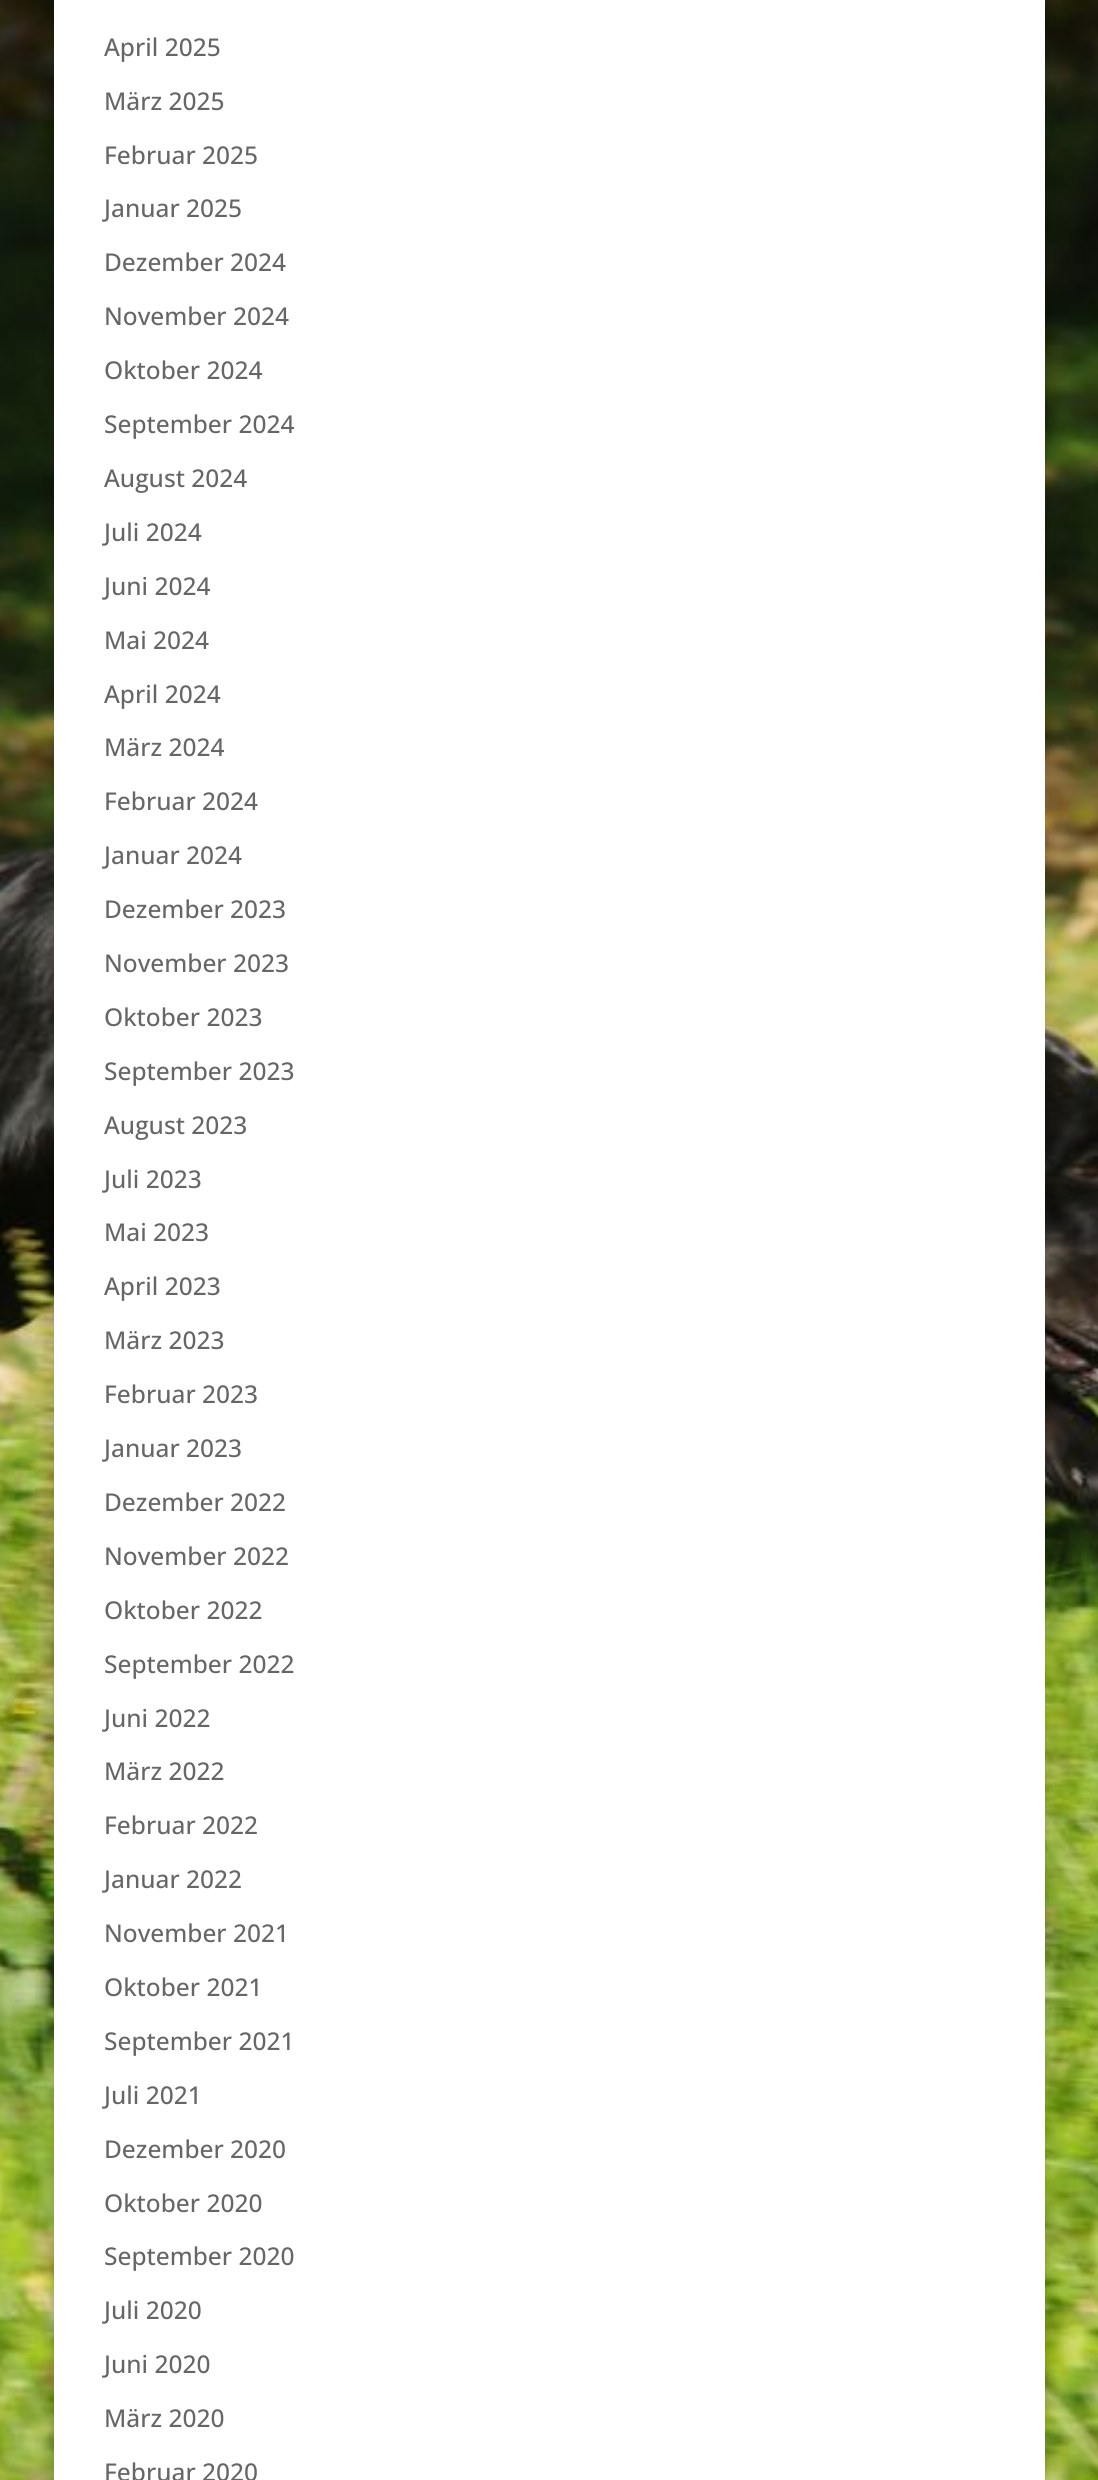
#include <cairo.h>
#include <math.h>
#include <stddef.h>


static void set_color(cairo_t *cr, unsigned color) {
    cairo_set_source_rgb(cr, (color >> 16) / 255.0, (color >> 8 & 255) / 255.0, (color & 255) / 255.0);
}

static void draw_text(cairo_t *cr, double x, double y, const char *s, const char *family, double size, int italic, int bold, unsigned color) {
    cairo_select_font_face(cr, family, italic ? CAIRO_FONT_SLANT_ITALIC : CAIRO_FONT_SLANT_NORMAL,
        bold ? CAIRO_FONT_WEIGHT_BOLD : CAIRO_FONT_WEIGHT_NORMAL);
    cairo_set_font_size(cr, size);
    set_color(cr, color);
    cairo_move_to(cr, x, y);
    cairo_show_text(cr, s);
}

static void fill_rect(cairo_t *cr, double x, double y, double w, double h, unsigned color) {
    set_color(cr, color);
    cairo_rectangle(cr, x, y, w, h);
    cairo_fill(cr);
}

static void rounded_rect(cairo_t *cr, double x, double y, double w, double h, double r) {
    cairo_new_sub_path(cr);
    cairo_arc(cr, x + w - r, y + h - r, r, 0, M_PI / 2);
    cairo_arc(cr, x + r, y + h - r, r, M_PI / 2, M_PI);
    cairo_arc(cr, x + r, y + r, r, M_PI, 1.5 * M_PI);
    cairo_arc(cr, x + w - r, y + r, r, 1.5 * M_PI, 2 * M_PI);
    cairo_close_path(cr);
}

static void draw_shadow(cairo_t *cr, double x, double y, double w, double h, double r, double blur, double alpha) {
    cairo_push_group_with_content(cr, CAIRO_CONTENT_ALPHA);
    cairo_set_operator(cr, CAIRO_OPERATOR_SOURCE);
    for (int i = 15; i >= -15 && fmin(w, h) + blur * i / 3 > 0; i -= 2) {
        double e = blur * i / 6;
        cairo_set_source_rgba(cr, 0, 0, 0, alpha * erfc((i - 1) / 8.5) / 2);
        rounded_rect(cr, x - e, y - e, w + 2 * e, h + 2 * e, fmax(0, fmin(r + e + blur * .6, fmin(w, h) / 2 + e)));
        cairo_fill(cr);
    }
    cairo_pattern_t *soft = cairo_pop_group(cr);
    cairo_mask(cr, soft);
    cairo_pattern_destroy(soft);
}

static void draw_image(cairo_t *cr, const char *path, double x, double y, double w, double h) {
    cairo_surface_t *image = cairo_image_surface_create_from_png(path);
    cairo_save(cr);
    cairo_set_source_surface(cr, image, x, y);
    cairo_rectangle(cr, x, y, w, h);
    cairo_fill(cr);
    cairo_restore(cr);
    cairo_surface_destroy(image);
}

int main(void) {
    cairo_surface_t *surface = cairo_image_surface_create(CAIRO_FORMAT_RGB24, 1098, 2480);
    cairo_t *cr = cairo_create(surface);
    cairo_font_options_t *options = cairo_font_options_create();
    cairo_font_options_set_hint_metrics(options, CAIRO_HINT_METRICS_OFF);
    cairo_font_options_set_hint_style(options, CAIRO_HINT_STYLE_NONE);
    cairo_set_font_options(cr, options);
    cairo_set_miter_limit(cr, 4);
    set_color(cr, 0xFFFFFF);
    cairo_paint(cr);
    draw_image(cr, "assets/img1.png", 0, 0, 1098, 2480);
    set_color(cr, 0x000000);
    draw_shadow(cr, 54, -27, 991, 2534, 0, 9, 0.2);
    fill_rect(cr, 54, 0, 991, 2480, 0xFFFFFF);
    draw_text(cr, 104, 56, "April 2025", "Open Sans Medium", 24.5, 0, 0, 0x666666);
    draw_text(cr, 104, 110, "März 2025", "Open Sans Medium", 24.5, 0, 0, 0x666666);
    draw_text(cr, 104, 164, "Februar 2025", "Open Sans Medium", 24.5, 0, 0, 0x666666);
    draw_text(cr, 104, 217, "Januar 2025", "Open Sans Medium", 24.5, 0, 0, 0x666666);
    draw_text(cr, 104, 271, "Dezember 2024", "Open Sans Medium", 24.5, 0, 0, 0x666666);
    draw_text(cr, 104, 325, "November 2024", "Open Sans Medium", 24.5, 0, 0, 0x666666);
    draw_text(cr, 104, 379, "Oktober 2024", "Open Sans Medium", 24.5, 0, 0, 0x666666);
    draw_text(cr, 104, 433, "September 2024", "Open Sans Medium", 24.5, 0, 0, 0x666666);
    draw_text(cr, 104, 487, "August 2024", "Open Sans Medium", 24.5, 0, 0, 0x666666);
    draw_text(cr, 104, 541, "Juli 2024", "Open Sans Medium", 24.5, 0, 0, 0x666666);
    draw_text(cr, 104, 595, "Juni 2024", "Open Sans Medium", 24.5, 0, 0, 0x666666);
    draw_text(cr, 104, 649, "Mai 2024", "Open Sans Medium", 24.5, 0, 0, 0x666666);
    draw_text(cr, 104, 703, "April 2024", "Open Sans Medium", 24.5, 0, 0, 0x666666);
    draw_text(cr, 104, 756, "März 2024", "Open Sans Medium", 24.5, 0, 0, 0x666666);
    draw_text(cr, 104, 810, "Februar 2024", "Open Sans Medium", 24.5, 0, 0, 0x666666);
    draw_text(cr, 104, 864, "Januar 2024", "Open Sans Medium", 24.5, 0, 0, 0x666666);
    draw_text(cr, 104, 918, "Dezember 2023", "Open Sans Medium", 24.5, 0, 0, 0x666666);
    draw_text(cr, 104, 972, "November 2023", "Open Sans Medium", 24.5, 0, 0, 0x666666);
    draw_text(cr, 104, 1026, "Oktober 2023", "Open Sans Medium", 24.5, 0, 0, 0x666666);
    draw_text(cr, 104, 1080, "September 2023", "Open Sans Medium", 24.5, 0, 0, 0x666666);
    draw_text(cr, 104, 1134, "August 2023", "Open Sans Medium", 24.5, 0, 0, 0x666666);
    draw_text(cr, 104, 1188, "Juli 2023", "Open Sans Medium", 24.5, 0, 0, 0x666666);
    draw_text(cr, 104, 1241, "Mai 2023", "Open Sans Medium", 24.5, 0, 0, 0x666666);
    draw_text(cr, 104, 1295, "April 2023", "Open Sans Medium", 24.5, 0, 0, 0x666666);
    draw_text(cr, 104, 1349, "März 2023", "Open Sans Medium", 24.5, 0, 0, 0x666666);
    draw_text(cr, 104, 1403, "Februar 2023", "Open Sans Medium", 24.5, 0, 0, 0x666666);
    draw_text(cr, 104, 1457, "Januar 2023", "Open Sans Medium", 24.5, 0, 0, 0x666666);
    draw_text(cr, 104, 1511, "Dezember 2022", "Open Sans Medium", 24.5, 0, 0, 0x666666);
    draw_text(cr, 104, 1565, "November 2022", "Open Sans Medium", 24.5, 0, 0, 0x666666);
    draw_text(cr, 104, 1619, "Oktober 2022", "Open Sans Medium", 24.5, 0, 0, 0x666666);
    draw_text(cr, 104, 1673, "September 2022", "Open Sans Medium", 24.5, 0, 0, 0x666666);
    draw_text(cr, 104, 1727, "Juni 2022", "Open Sans Medium", 24.5, 0, 0, 0x666666);
    draw_text(cr, 104, 1780, "März 2022", "Open Sans Medium", 24.5, 0, 0, 0x666666);
    draw_text(cr, 104, 1834, "Februar 2022", "Open Sans Medium", 24.5, 0, 0, 0x666666);
    draw_text(cr, 104, 1888, "Januar 2022", "Open Sans Medium", 24.5, 0, 0, 0x666666);
    draw_text(cr, 104, 1942, "November 2021", "Open Sans Medium", 24.5, 0, 0, 0x666666);
    draw_text(cr, 104, 1996, "Oktober 2021", "Open Sans Medium", 24.5, 0, 0, 0x666666);
    draw_text(cr, 104, 2050, "September 2021", "Open Sans Medium", 24.5, 0, 0, 0x666666);
    draw_text(cr, 104, 2104, "Juli 2021", "Open Sans Medium", 24.5, 0, 0, 0x666666);
    draw_text(cr, 104, 2158, "Dezember 2020", "Open Sans Medium", 24.5, 0, 0, 0x666666);
    draw_text(cr, 104, 2212, "Oktober 2020", "Open Sans Medium", 24.5, 0, 0, 0x666666);
    draw_text(cr, 104, 2265, "September 2020", "Open Sans Medium", 24.5, 0, 0, 0x666666);
    draw_text(cr, 104, 2319, "Juli 2020", "Open Sans Medium", 24.5, 0, 0, 0x666666);
    draw_text(cr, 104, 2373, "Juni 2020", "Open Sans Medium", 24.5, 0, 0, 0x666666);
    draw_text(cr, 104, 2427, "März 2020", "Open Sans Medium", 24.5, 0, 0, 0x666666);
    draw_text(cr, 104, 2481, "Februar 2020", "Open Sans Medium", 24.5, 0, 0, 0x666666);
    cairo_surface_write_to_png(surface, "output.png");
    cairo_font_options_destroy(options);
    cairo_destroy(cr);
    cairo_surface_destroy(surface);
    return 0;
}
